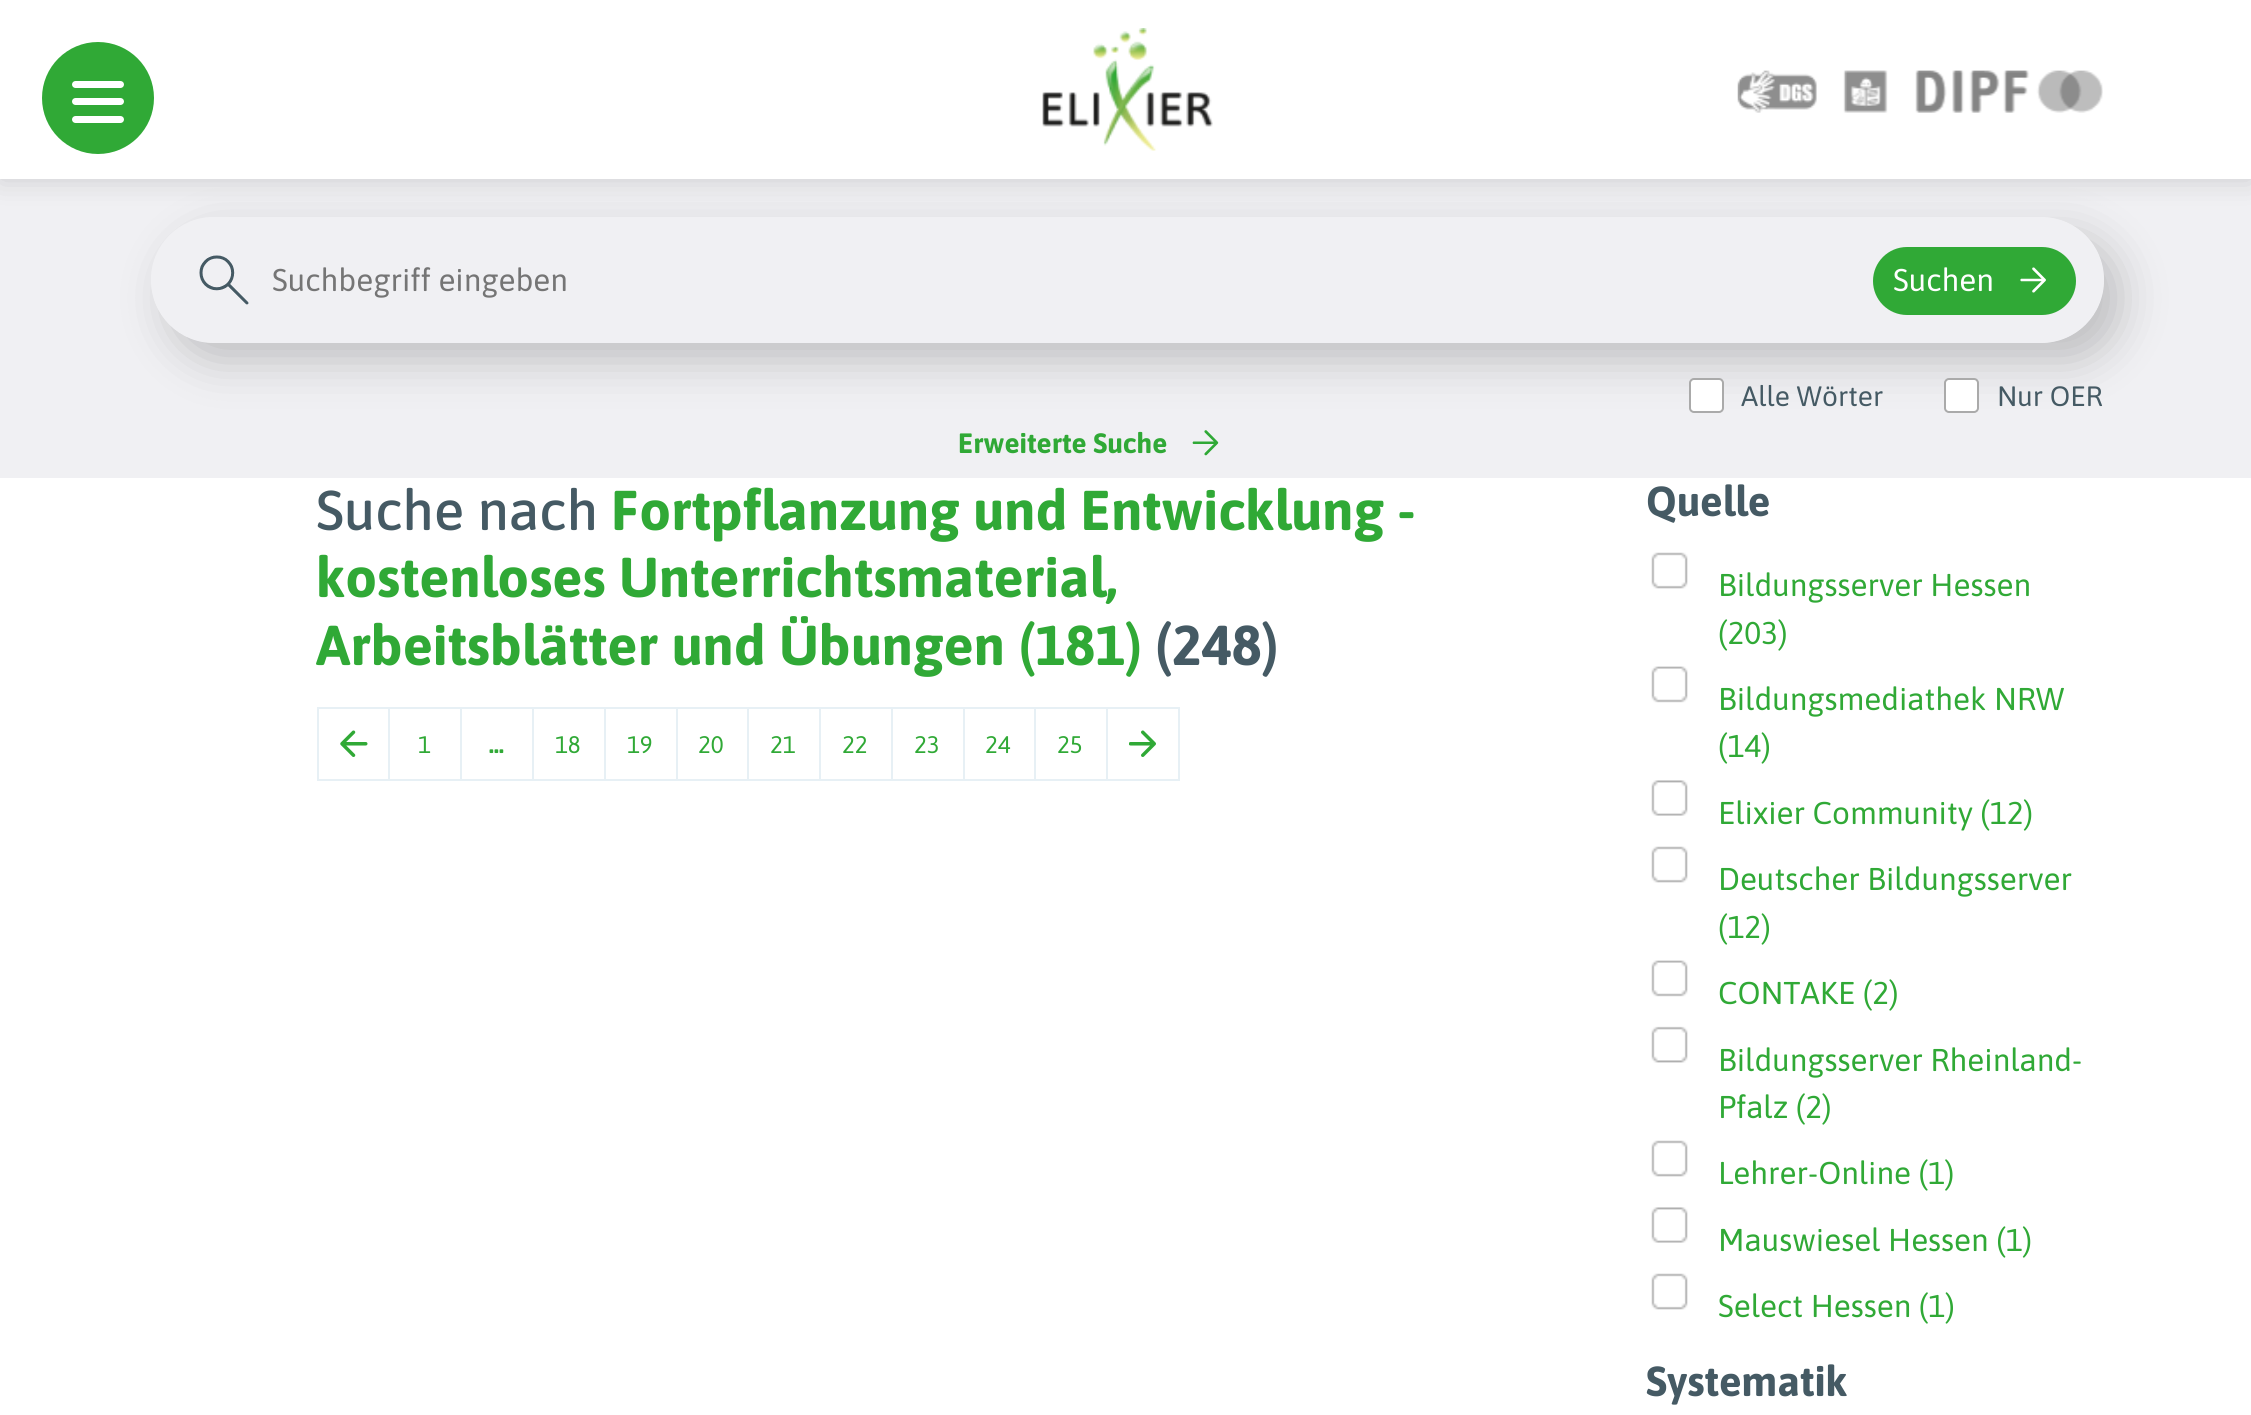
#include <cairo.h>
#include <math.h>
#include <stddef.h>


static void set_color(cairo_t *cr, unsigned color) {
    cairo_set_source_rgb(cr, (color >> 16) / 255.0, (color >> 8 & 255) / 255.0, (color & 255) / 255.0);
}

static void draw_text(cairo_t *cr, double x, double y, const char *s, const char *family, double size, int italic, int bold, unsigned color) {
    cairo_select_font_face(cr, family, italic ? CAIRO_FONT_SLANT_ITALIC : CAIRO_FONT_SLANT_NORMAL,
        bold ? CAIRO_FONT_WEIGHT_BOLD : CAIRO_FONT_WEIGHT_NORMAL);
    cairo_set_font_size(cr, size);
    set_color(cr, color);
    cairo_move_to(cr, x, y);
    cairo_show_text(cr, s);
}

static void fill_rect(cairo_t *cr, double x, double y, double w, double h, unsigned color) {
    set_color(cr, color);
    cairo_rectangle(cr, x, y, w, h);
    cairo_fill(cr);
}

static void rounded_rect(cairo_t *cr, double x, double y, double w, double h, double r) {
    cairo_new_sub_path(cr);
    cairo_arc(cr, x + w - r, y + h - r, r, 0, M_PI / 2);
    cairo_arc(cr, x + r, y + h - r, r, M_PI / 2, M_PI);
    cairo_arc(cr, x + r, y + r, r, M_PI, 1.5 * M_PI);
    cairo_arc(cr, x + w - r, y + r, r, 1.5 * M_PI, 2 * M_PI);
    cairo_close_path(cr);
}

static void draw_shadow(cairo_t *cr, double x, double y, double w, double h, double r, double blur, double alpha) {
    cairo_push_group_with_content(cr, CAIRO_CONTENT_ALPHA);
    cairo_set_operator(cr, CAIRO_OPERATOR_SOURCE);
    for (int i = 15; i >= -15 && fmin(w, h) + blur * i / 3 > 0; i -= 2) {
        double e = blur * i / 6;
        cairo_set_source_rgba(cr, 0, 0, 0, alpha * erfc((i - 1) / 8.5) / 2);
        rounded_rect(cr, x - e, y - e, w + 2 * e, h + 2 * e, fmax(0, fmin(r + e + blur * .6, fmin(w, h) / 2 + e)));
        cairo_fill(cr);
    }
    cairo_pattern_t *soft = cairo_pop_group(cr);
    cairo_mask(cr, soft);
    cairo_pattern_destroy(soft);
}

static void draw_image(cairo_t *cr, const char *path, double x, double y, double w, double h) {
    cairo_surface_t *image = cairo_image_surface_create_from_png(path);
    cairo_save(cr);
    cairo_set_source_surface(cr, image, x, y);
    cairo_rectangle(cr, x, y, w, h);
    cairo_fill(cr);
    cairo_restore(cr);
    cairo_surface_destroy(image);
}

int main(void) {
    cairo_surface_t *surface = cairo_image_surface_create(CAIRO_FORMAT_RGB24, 2251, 1415);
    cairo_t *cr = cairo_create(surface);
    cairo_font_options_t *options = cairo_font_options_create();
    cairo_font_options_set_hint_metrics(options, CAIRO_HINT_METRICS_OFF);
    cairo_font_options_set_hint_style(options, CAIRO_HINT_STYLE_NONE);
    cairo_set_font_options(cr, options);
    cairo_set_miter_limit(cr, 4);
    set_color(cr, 0xFFFFFF);
    cairo_paint(cr);
    fill_rect(cr, 0, 179, 2251, 299, 0xF0F0F3);
    set_color(cr, 0x121212);
    draw_shadow(cr, 0, 2, 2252, 178, 0, 14, 0.16);
    cairo_save(cr);
    cairo_set_fill_rule(cr, CAIRO_FILL_RULE_EVEN_ODD);
    cairo_new_path(cr);
    cairo_move_to(cr, 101, 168);
    cairo_line_to(cr, 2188, 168);
    cairo_line_to(cr, 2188, 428);
    cairo_line_to(cr, 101, 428);
    cairo_close_path(cr);
    cairo_move_to(cr, 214, 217);
    cairo_line_to(cr, 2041, 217);
    cairo_curve_to(cr, 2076, 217, 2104, 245, 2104, 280);
    cairo_curve_to(cr, 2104, 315, 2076, 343, 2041, 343);
    cairo_line_to(cr, 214, 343);
    cairo_curve_to(cr, 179, 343, 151, 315, 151, 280);
    cairo_curve_to(cr, 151, 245, 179, 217, 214, 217);
    cairo_close_path(cr);
    cairo_clip(cr);
    set_color(cr, 0xC0C0C2);
    draw_shadow(cr, 168, 235, 1953, 126, 63, 22, 1);
    cairo_restore(cr);
    fill_rect(cr, 0, 0, 2251, 179, 0xFFFFFF);
    set_color(cr, 0x30A936);
    cairo_arc(cr, 98, 98, 56, 0, 2 * M_PI);
    cairo_fill(cr);
    set_color(cr, 0xFFFFFF);
    rounded_rect(cr, 72, 98, 52, 7, 3.5);
    cairo_fill(cr);
    rounded_rect(cr, 72, 81, 52, 7, 3.5);
    cairo_fill(cr);
    rounded_rect(cr, 72, 116, 52, 7, 3.5);
    cairo_fill(cr);
    draw_image(cr, "assets/img1.png", 1042, 28, 171, 123);
    draw_image(cr, "assets/img2.png", 1737, 70, 80, 43);
    draw_image(cr, "assets/img3.png", 1843, 70, 45, 43);
    draw_image(cr, "assets/img4.png", 1915, 70, 188, 43);
    draw_image(cr, "assets/img5.png", 199, 255, 50, 50);
    draw_text(cr, 272, 291, "Suchbegriff eingeben", "Asap", 31.5, 0, 0, 0x757575);
    set_color(cr, 0x30A936);
    rounded_rect(cr, 1873, 247, 203, 68, 34);
    cairo_fill(cr);
    draw_text(cr, 1893, 291, "Suchen", "Asap", 31.5, 0, 0, 0xFFFFFF);
    draw_image(cr, "assets/img6.png", 2020, 267, 26, 26);
    rounded_rect(cr, 1690, 379, 33, 33, 4);
    cairo_fill_preserve(cr);
    set_color(cr, 0xAAAAAA);
    cairo_stroke(cr);
    draw_text(cr, 1741, 406, "Alle Wörter", "Asap", 28, 0, 0, 0x455A64);
    set_color(cr, 0xFFFFFF);
    rounded_rect(cr, 1945, 379, 33, 33, 4);
    cairo_fill_preserve(cr);
    set_color(cr, 0xAAAAAA);
    cairo_stroke(cr);
    draw_text(cr, 1997, 406, "Nur OER", "Asap", 28, 0, 0, 0x455A64);
    draw_text(cr, 958, 453, "Erweiterte Suche", "Asap", 28, 0, 1, 0x30A936);
    draw_image(cr, "assets/img7.png", 1192, 430, 27, 26);
    draw_text(cr, 316, 530, "Suche nach", "Asap Medium", 56, 0, 0, 0x455A64);
    draw_text(cr, 611, 530, "Fortpflanzung und Entwicklung -", "Asap", 56, 0, 1, 0x30A936);
    draw_text(cr, 316, 597, "kostenloses Unterrichtsmaterial,", "Asap", 56, 0, 1, 0x30A936);
    draw_text(cr, 316, 665, "Arbeitsblätter und Übungen (181)", "Asap", 56, 0, 1, 0x30A936);
    draw_text(cr, 1155, 665, "(248)", "Asap", 56, 0, 1, 0x455A64);
    cairo_rectangle(cr, 318, 708, 71, 72);
    set_color(cr, 0xE7F0F5);
    cairo_stroke(cr);
    draw_image(cr, "assets/img8.png", 340, 730, 28, 27);
    fill_rect(cr, 390, 707, 287, 2, 0xE7F0F5);
    fill_rect(cr, 460, 707, 2, 74, 0xE7F0F5);
    fill_rect(cr, 390, 779, 72, 2, 0xE7F0F5);
    draw_text(cr, 418, 753, "1", "Asap", 24, 0, 0, 0x30A936);
    fill_rect(cr, 532, 707, 2, 74, 0xE7F0F5);
    fill_rect(cr, 462, 779, 72, 2, 0xE7F0F5);
    draw_text(cr, 489, 753, "…", "Asap", 24, 0, 1, 0x30A936);
    fill_rect(cr, 604, 707, 2, 74, 0xE7F0F5);
    fill_rect(cr, 534, 779, 72, 2, 0xE7F0F5);
    draw_text(cr, 555, 753, "18", "Asap", 24, 0, 0, 0x30A936);
    fill_rect(cr, 676, 707, 2, 74, 0xE7F0F5);
    fill_rect(cr, 606, 779, 71, 2, 0xE7F0F5);
    draw_text(cr, 627, 753, "19", "Asap", 24, 0, 0, 0x30A936);
    fill_rect(cr, 677, 707, 287, 2, 0xE7F0F5);
    fill_rect(cr, 747, 707, 2, 74, 0xE7F0F5);
    fill_rect(cr, 677, 779, 72, 2, 0xE7F0F5);
    draw_text(cr, 698, 753, "20", "Asap", 24, 0, 0, 0x30A936);
    fill_rect(cr, 819, 707, 2, 74, 0xE7F0F5);
    fill_rect(cr, 749, 779, 72, 2, 0xE7F0F5);
    draw_text(cr, 770, 753, "21", "Asap", 24, 0, 0, 0x30A936);
    fill_rect(cr, 891, 707, 2, 74, 0xE7F0F5);
    fill_rect(cr, 821, 779, 72, 2, 0xE7F0F5);
    draw_text(cr, 842, 753, "22", "Asap", 24, 0, 0, 0x30A936);
    fill_rect(cr, 963, 707, 2, 74, 0xE7F0F5);
    fill_rect(cr, 893, 779, 71, 2, 0xE7F0F5);
    draw_text(cr, 914, 753, "23", "Asap", 24, 0, 0, 0x30A936);
    fill_rect(cr, 964, 707, 216, 2, 0xE7F0F5);
    fill_rect(cr, 1034, 707, 2, 74, 0xE7F0F5);
    fill_rect(cr, 964, 779, 72, 2, 0xE7F0F5);
    draw_text(cr, 985, 753, "24", "Asap", 24, 0, 0, 0x30A936);
    fill_rect(cr, 1106, 707, 2, 74, 0xE7F0F5);
    fill_rect(cr, 1036, 779, 72, 2, 0xE7F0F5);
    draw_text(cr, 1057, 753, "25", "Asap", 24, 0, 0, 0x30A936);
    fill_rect(cr, 1178, 707, 2, 74, 0xE7F0F5);
    fill_rect(cr, 1108, 779, 72, 2, 0xE7F0F5);
    draw_image(cr, "assets/img9.png", 1129, 730, 27, 27);
    draw_text(cr, 1646, 516, "Quelle", "Asap", 42, 0, 1, 0x455A64);
    draw_image(cr, "assets/img10.png", 1651, 552, 37, 37);
    draw_text(cr, 1718, 596, "Bildungsserver Hessen", "Asap", 31.5, 0, 0, 0x30A936);
    draw_text(cr, 1718, 644, "(203)", "Asap", 31.5, 0, 0, 0x30A936);
    draw_image(cr, "assets/img11.png", 1651, 666, 37, 37);
    draw_text(cr, 1718, 710, "Bildungsmediathek NRW", "Asap", 31.5, 0, 0, 0x30A936);
    draw_text(cr, 1718, 757, "(14)", "Asap", 31.5, 0, 0, 0x30A936);
    draw_image(cr, "assets/img12.png", 1651, 780, 37, 36);
    draw_text(cr, 1718, 824, "Elixier Community (12)", "Asap", 31.5, 0, 0, 0x30A936);
    draw_image(cr, "assets/img10.png", 1651, 846, 37, 37);
    draw_text(cr, 1718, 890, "Deutscher Bildungsserver", "Asap", 31.5, 0, 0, 0x30A936);
    draw_text(cr, 1718, 938, "(12)", "Asap", 31.5, 0, 0, 0x30A936);
    draw_image(cr, "assets/img11.png", 1651, 960, 37, 37);
    draw_text(cr, 1718, 1004, "CONTAKE (2)", "Asap", 31.5, 0, 0, 0x30A936);
    draw_image(cr, "assets/img13.png", 1651, 1026, 37, 37);
    draw_text(cr, 1718, 1071, "Bildungsserver Rheinland-", "Asap", 31.5, 0, 0, 0x30A936);
    draw_text(cr, 1718, 1118, "Pfalz (2)", "Asap", 31.5, 0, 0, 0x30A936);
    draw_image(cr, "assets/img10.png", 1651, 1140, 37, 37);
    draw_text(cr, 1718, 1184, "Lehrer-Online (1)", "Asap", 31.5, 0, 0, 0x30A936);
    draw_image(cr, "assets/img12.png", 1651, 1207, 37, 36);
    draw_text(cr, 1718, 1251, "Mauswiesel Hessen (1)", "Asap", 31.5, 0, 0, 0x30A936);
    draw_image(cr, "assets/img10.png", 1651, 1273, 37, 37);
    draw_text(cr, 1718, 1317, "Select Hessen (1)", "Asap", 31.5, 0, 0, 0x30A936);
    draw_text(cr, 1646, 1396, "Systematik", "Asap", 42, 0, 1, 0x455A64);
    cairo_surface_write_to_png(surface, "output.png");
    cairo_font_options_destroy(options);
    cairo_destroy(cr);
    cairo_surface_destroy(surface);
    return 0;
}
